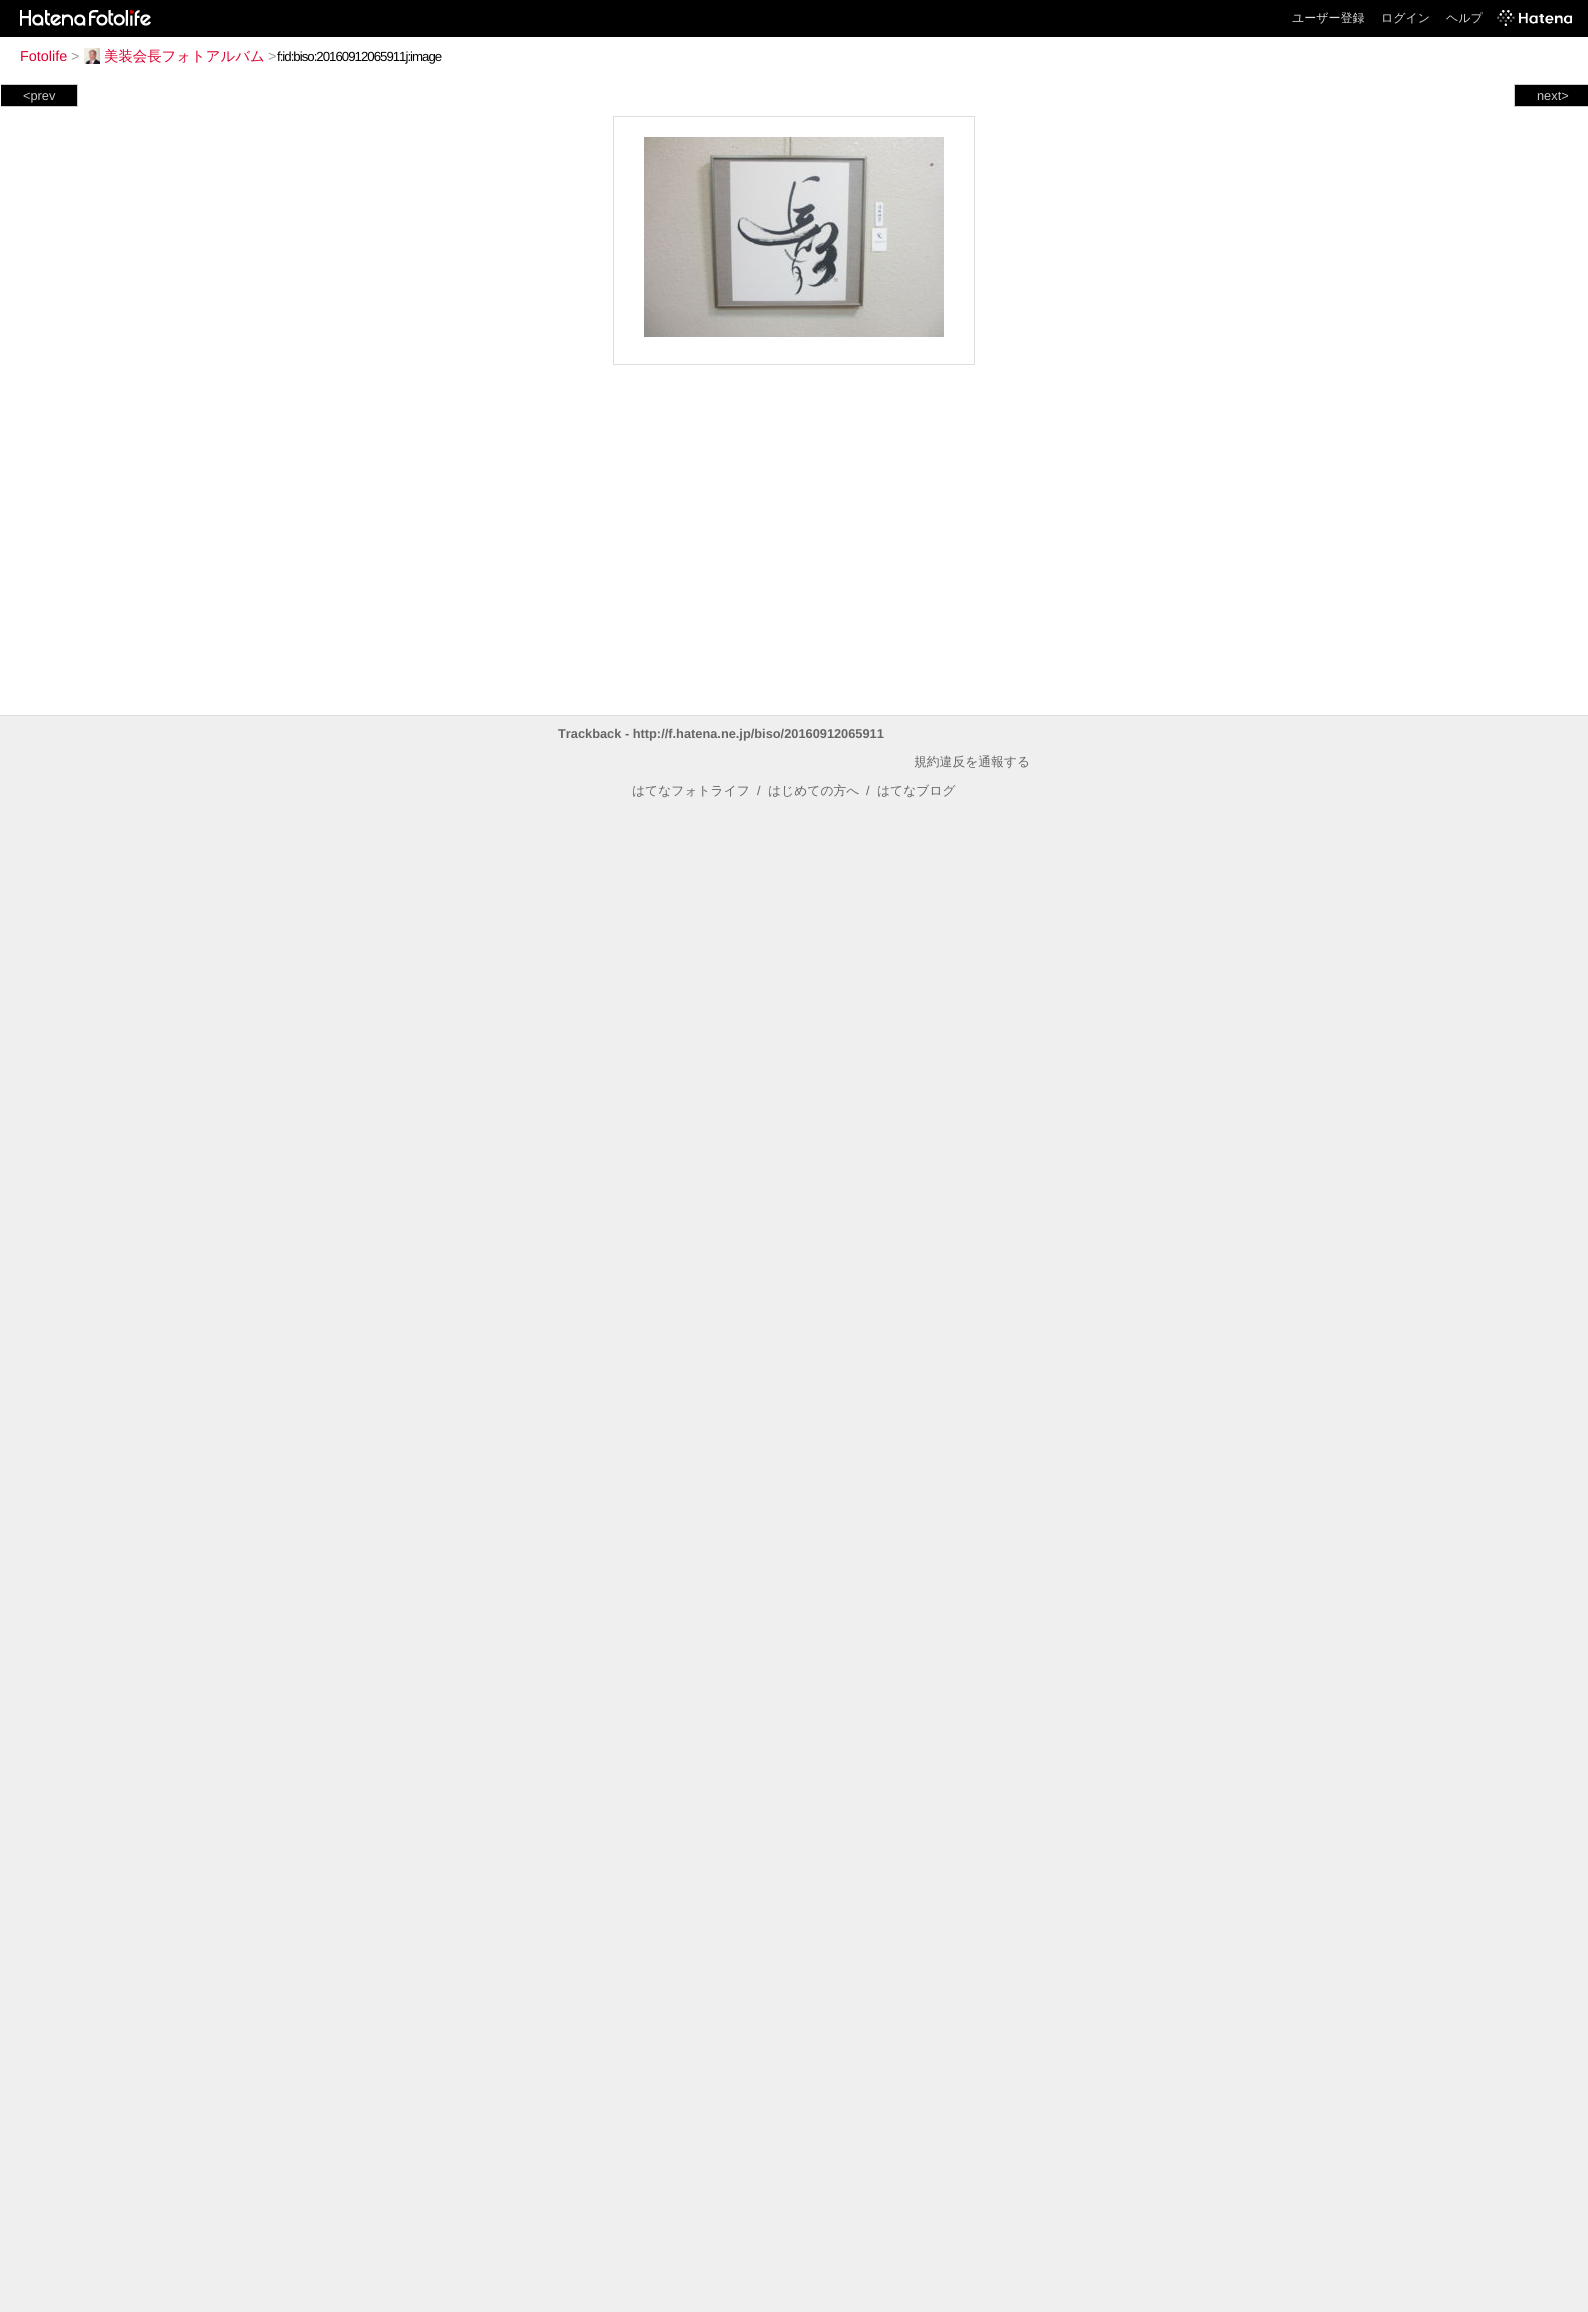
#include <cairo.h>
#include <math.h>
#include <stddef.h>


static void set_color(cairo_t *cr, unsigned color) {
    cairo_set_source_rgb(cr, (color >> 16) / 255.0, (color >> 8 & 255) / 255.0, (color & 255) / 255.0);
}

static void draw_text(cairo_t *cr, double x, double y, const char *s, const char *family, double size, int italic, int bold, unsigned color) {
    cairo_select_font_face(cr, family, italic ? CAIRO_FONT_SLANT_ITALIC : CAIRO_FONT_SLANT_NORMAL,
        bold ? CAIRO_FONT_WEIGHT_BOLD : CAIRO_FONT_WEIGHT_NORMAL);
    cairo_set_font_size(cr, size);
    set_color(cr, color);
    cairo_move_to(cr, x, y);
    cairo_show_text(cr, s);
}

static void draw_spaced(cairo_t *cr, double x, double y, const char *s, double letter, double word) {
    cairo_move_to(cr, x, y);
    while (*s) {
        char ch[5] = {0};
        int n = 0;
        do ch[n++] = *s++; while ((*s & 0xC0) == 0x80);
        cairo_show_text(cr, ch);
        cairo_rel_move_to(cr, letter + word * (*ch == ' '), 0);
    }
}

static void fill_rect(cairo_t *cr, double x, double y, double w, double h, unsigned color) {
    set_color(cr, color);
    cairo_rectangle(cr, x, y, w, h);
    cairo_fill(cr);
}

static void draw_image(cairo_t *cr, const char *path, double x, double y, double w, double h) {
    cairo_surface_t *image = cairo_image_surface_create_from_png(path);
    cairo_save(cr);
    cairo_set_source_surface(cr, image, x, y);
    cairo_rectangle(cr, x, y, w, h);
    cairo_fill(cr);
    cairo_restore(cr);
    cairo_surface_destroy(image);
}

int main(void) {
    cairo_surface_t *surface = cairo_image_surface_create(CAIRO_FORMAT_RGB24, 1588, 2312);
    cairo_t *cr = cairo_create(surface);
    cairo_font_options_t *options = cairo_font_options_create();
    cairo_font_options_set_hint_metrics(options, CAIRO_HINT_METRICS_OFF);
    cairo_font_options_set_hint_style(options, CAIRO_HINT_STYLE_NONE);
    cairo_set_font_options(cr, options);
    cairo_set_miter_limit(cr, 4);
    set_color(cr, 0xEFEFEF);
    cairo_paint(cr);
    fill_rect(cr, 0, 0, 1588, 37, 0x000000);
    draw_image(cr, "assets/img1.png", 20, 10, 66, 16);
    draw_image(cr, "assets/img2.png", 89, 10, 62, 16);
    draw_text(cr, 1292, 22, "ユーザー登録", "WenQuanYi Zen Hei Medium", 12, 0, 0, 0xDDDDDD);
    draw_text(cr, 1381, 22, "ログイン", "WenQuanYi Zen Hei Medium", 12, 0, 0, 0xDDDDDD);
    draw_text(cr, 1446, 22, "ヘルプ", "WenQuanYi Zen Hei Medium", 12, 0, 0, 0xDDDDDD);
    draw_image(cr, "assets/img3.png", 1497, 10, 75, 16);
    fill_rect(cr, 0, 37, 1588, 678, 0xFFFFFF);
    draw_text(cr, 20, 61, "Fotolife", "Liberation Sans", 14.4, 0, 0, 0xDE002F);
    draw_text(cr, 71, 61, ">", "Liberation Sans", 14.4, 0, 0, 0x999999);
    draw_image(cr, "assets/img4.png", 84, 48, 16, 16);
    draw_text(cr, 104, 61, "美装会長フォトアルバム", "WenQuanYi Zen Hei Medium", 14.4, 0, 0, 0xDE002F);
    draw_text(cr, 268, 61, ">", "Liberation Sans", 14.4, 0, 0, 0x999999);
    cairo_set_font_size(cr, 13.25);
    set_color(cr, 0x000000);
    draw_spaced(cr, 277, 61, "f:id:biso:20160912065911j:image", -1, 0);
    fill_rect(cr, 0, 715, 1588, 1, 0xDEDEDE);
    fill_rect(cr, 1, 85, 76, 21, 0x000000);
    fill_rect(cr, 1, 84, 77, 1, 0xCCCCCC);
    fill_rect(cr, 77, 84, 1, 23, 0xCCCCCC);
    fill_rect(cr, 1, 106, 77, 1, 0xCCCCCC);
    draw_text(cr, 23, 100, "<prev", "Liberation Sans", 12.8, 0, 0, 0xCCCCCC);
    fill_rect(cr, 1515, 85, 73, 21, 0x000000);
    fill_rect(cr, 1514, 84, 74, 1, 0xCCCCCC);
    fill_rect(cr, 1514, 106, 74, 1, 0xCCCCCC);
    fill_rect(cr, 1514, 84, 1, 23, 0xCCCCCC);
    draw_text(cr, 1537, 100, "next>", "Liberation Sans", 12.8, 0, 0, 0xCCCCCC);
    cairo_rectangle(cr, 613.5, 116.5, 361, 248);
    set_color(cr, 0xDEDEDE);
    cairo_set_line_width(cr, 1);
    cairo_stroke(cr);
    draw_image(cr, "assets/img5.png", 644, 137, 300, 200);
    draw_text(cr, 558, 738, "Trackback - http://f.hatena.ne.jp/biso/20160912065911", "Liberation Sans", 12.8, 0, 1, 0x666666);
    draw_text(cr, 914, 766, "規約違反を通報する", "WenQuanYi Zen Hei Medium", 12.8, 0, 0, 0x666666);
    draw_text(cr, 632, 795, "はてなフォトライフ", "WenQuanYi Zen Hei Medium", 12.8, 0, 0, 0x666666);
    draw_text(cr, 757, 795, "/", "Liberation Sans", 12.8, 0, 0, 0x666666);
    draw_text(cr, 768, 795, "はじめての方へ", "WenQuanYi Zen Hei Medium", 12.8, 0, 0, 0x666666);
    draw_text(cr, 866, 795, "/", "Liberation Sans", 12.8, 0, 0, 0x666666);
    draw_text(cr, 877, 795, "はてなブログ", "WenQuanYi Zen Hei Medium", 12.8, 0, 0, 0x666666);
    cairo_surface_write_to_png(surface, "output.png");
    cairo_font_options_destroy(options);
    cairo_destroy(cr);
    cairo_surface_destroy(surface);
    return 0;
}
